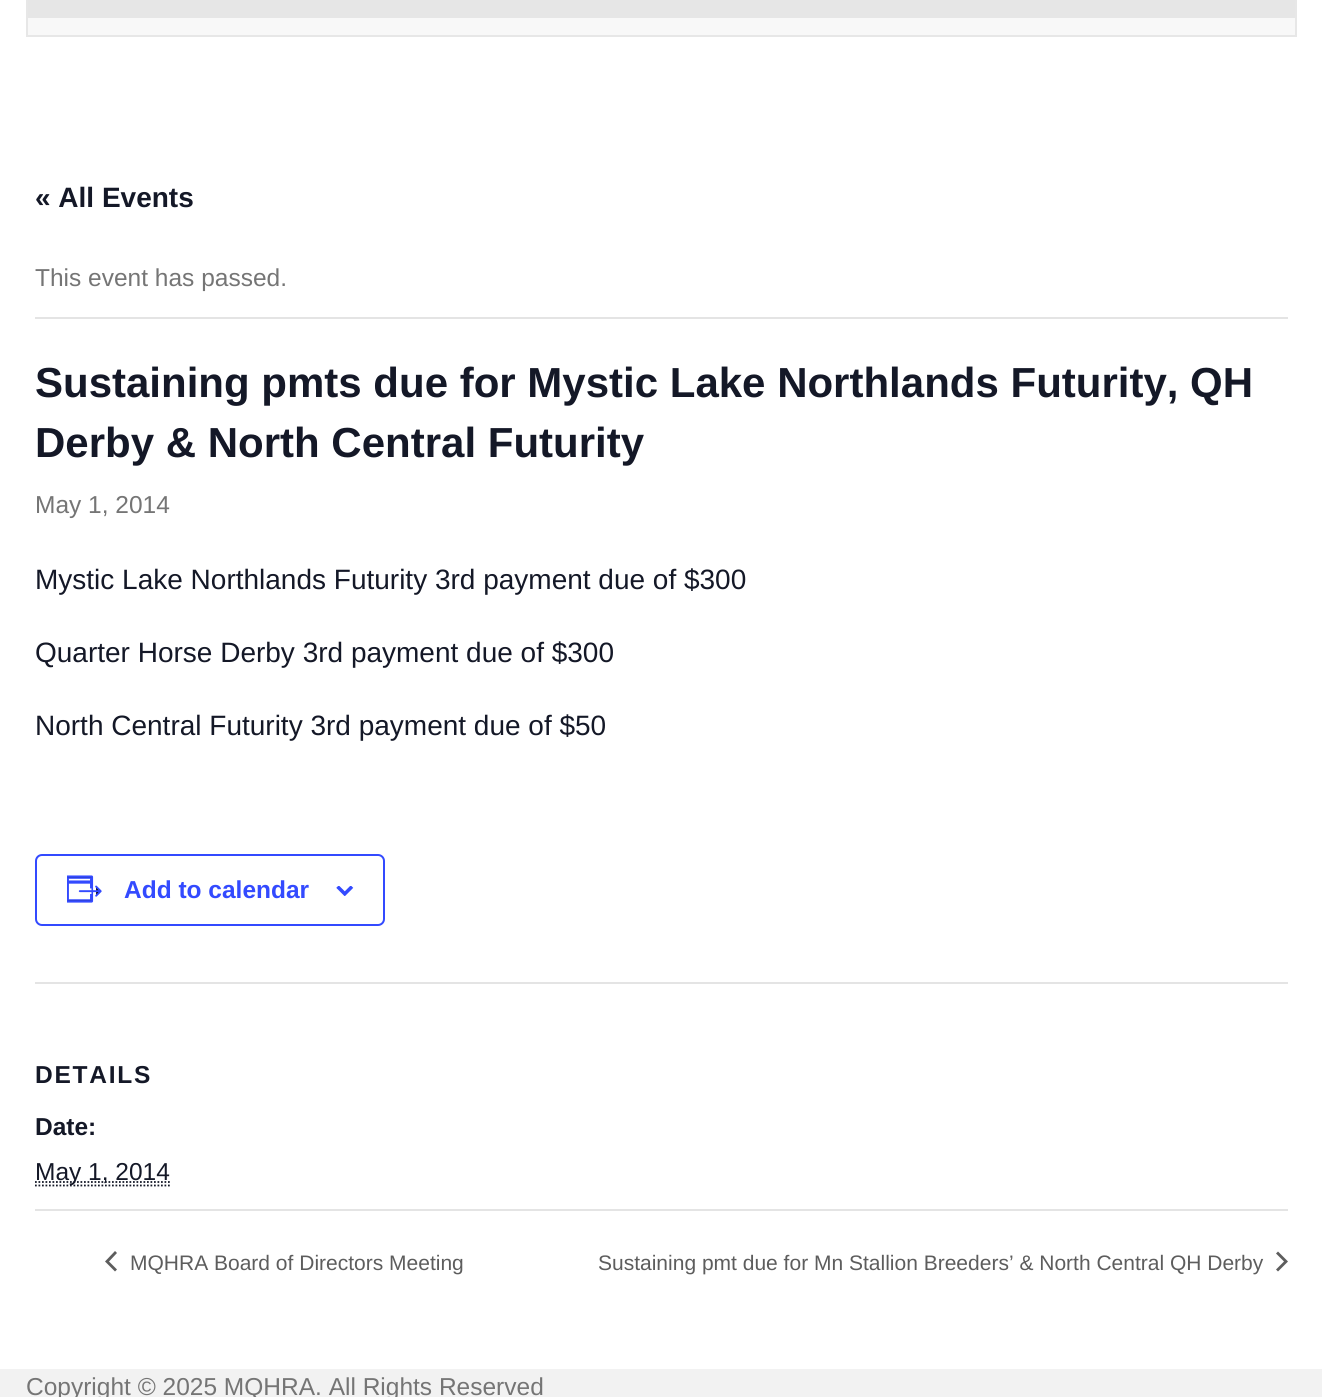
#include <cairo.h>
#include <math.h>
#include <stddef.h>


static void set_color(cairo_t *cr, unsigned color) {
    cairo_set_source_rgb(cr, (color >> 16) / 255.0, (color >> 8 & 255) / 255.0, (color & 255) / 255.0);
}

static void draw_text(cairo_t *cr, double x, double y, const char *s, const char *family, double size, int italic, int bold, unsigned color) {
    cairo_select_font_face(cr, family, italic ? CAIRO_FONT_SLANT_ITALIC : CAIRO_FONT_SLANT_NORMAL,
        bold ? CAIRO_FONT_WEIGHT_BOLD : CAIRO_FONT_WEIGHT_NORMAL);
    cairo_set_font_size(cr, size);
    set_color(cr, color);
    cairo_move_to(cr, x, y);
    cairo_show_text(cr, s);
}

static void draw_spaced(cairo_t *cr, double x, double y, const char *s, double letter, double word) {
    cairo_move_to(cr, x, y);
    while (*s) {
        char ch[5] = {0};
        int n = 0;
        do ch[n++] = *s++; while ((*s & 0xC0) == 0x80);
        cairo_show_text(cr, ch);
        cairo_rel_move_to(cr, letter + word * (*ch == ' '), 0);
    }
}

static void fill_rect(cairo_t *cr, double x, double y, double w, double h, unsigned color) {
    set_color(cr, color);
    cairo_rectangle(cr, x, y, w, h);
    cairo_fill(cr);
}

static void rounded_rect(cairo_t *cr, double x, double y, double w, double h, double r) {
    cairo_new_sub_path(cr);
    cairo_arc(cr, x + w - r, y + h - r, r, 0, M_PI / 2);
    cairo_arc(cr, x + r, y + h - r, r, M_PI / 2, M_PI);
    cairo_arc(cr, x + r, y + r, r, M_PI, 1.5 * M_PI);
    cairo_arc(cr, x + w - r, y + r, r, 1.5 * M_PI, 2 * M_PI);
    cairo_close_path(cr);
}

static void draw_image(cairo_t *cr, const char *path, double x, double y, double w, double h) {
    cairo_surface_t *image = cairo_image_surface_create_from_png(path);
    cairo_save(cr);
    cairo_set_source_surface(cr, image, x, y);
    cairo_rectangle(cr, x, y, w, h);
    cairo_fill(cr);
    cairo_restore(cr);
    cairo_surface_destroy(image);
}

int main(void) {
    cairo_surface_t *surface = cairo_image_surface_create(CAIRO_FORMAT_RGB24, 1322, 1397);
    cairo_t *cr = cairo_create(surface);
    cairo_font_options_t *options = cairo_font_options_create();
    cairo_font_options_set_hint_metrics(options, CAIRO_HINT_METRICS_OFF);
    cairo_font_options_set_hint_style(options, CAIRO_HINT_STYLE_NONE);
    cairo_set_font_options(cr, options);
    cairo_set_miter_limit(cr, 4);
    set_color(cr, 0xF2F2F2);
    cairo_paint(cr);
    fill_rect(cr, 0, 0, 1322, 1369, 0xFFFFFF);
    fill_rect(cr, 28, 18, 1267, 17, 0xF8F8F8);
    cairo_rectangle(cr, 27, -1, 1269, 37);
    set_color(cr, 0xE7E7E7);
    cairo_stroke(cr);
    fill_rect(cr, 28, 0, 1267, 18, 0xE6E6E6);
    draw_text(cr, 35, 207, "« All Events", "Liberation Sans", 28, 0, 1, 0x141827);
    fill_rect(cr, 35, 317, 1253, 2, 0xE4E4E4);
    draw_text(cr, 35, 286, "This event has passed.", "Liberation Sans", 24.5, 0, 0, 0x757575);
    draw_text(cr, 35, 397, "Sustaining pmts due for Mystic Lake Northlands Futurity, QH", "Liberation Sans", 42, 0, 1, 0x141827);
    draw_text(cr, 35, 457, "Derby & North Central Futurity", "Liberation Sans", 42, 0, 1, 0x141827);
    draw_text(cr, 35, 513, "May 1, 2014", "Liberation Sans", 24.5, 0, 0, 0x757575);
    draw_text(cr, 35, 589, "Mystic Lake Northlands Futurity 3rd payment due of $300", "Liberation Sans", 28, 0, 0, 0x141827);
    draw_text(cr, 35, 662, "Quarter Horse Derby 3rd payment due of $300", "Liberation Sans", 28, 0, 0, 0x141827);
    draw_text(cr, 35, 735, "North Central Futurity 3rd payment due of $50", "Liberation Sans", 28, 0, 0, 0x141827);
    rounded_rect(cr, 36, 855, 348, 70, 6);
    set_color(cr, 0x334AFF);
    cairo_stroke(cr);
    draw_image(cr, "assets/img1.png", 67, 875, 35, 28);
    draw_text(cr, 124, 898, "Add to calendar", "Liberation Sans", 24.5, 0, 1, 0x334AFF);
    draw_image(cr, "assets/img2.png", 336, 886, 18, 10);
    fill_rect(cr, 35, 982, 1253, 2, 0xE4E4E4);
    set_color(cr, 0x141827);
    draw_spaced(cr, 35, 1083, "DETAILS", 1.75, 0);
    draw_text(cr, 35, 1135, "Date:", "Liberation Sans", 24.5, 0, 1, 0x141827);
    cairo_new_path(cr);
    cairo_move_to(cr, 35, 1185.5);
    cairo_line_to(cr, 170, 1185.5);
    cairo_set_line_width(cr, 1.8);
    cairo_set_dash(cr, (double[]){1.75, 1.75}, 2, 0);
    cairo_stroke(cr);
    cairo_new_path(cr);
    cairo_move_to(cr, 35, 1182);
    cairo_line_to(cr, 170, 1182);
    cairo_stroke(cr);
    draw_text(cr, 35, 1180, "May 1, 2014", "Liberation Sans", 24.5, 0, 0, 0x141827);
    fill_rect(cr, 35, 1209, 1253, 2, 0xE4E4E4);
    set_color(cr, 0x5D5D5D);
    cairo_new_path(cr);
    cairo_move_to(cr, 117, 1269.5);
    cairo_line_to(cr, 115, 1271.5);
    cairo_line_to(cr, 105, 1261.5);
    cairo_line_to(cr, 115, 1251);
    cairo_line_to(cr, 117, 1253);
    cairo_line_to(cr, 109, 1261.5);
    cairo_close_path(cr);
    cairo_fill(cr);
    draw_text(cr, 130, 1270, "MQHRA Board of Directors Meeting", "Liberation Sans", 21, 0, 0, 0x5D5D5D);
    draw_text(cr, 598, 1270, "Sustaining pmt due for Mn Stallion Breeders’ & North Central QH Derby", "Liberation Sans", 21, 0, 0, 0x5D5D5D);
    cairo_new_path(cr);
    cairo_move_to(cr, 1276, 1253.5);
    cairo_line_to(cr, 1278, 1251.5);
    cairo_line_to(cr, 1288, 1261.5);
    cairo_line_to(cr, 1278, 1271.5);
    cairo_line_to(cr, 1276, 1269.5);
    cairo_line_to(cr, 1284, 1261.5);
    cairo_close_path(cr);
    cairo_fill(cr);
    draw_text(cr, 26, 1395, "Copyright © 2025 MQHRA. All Rights Reserved", "Liberation Sans", 24.5, 0, 0, 0x757575);
    cairo_surface_write_to_png(surface, "output.png");
    cairo_font_options_destroy(options);
    cairo_destroy(cr);
    cairo_surface_destroy(surface);
    return 0;
}
